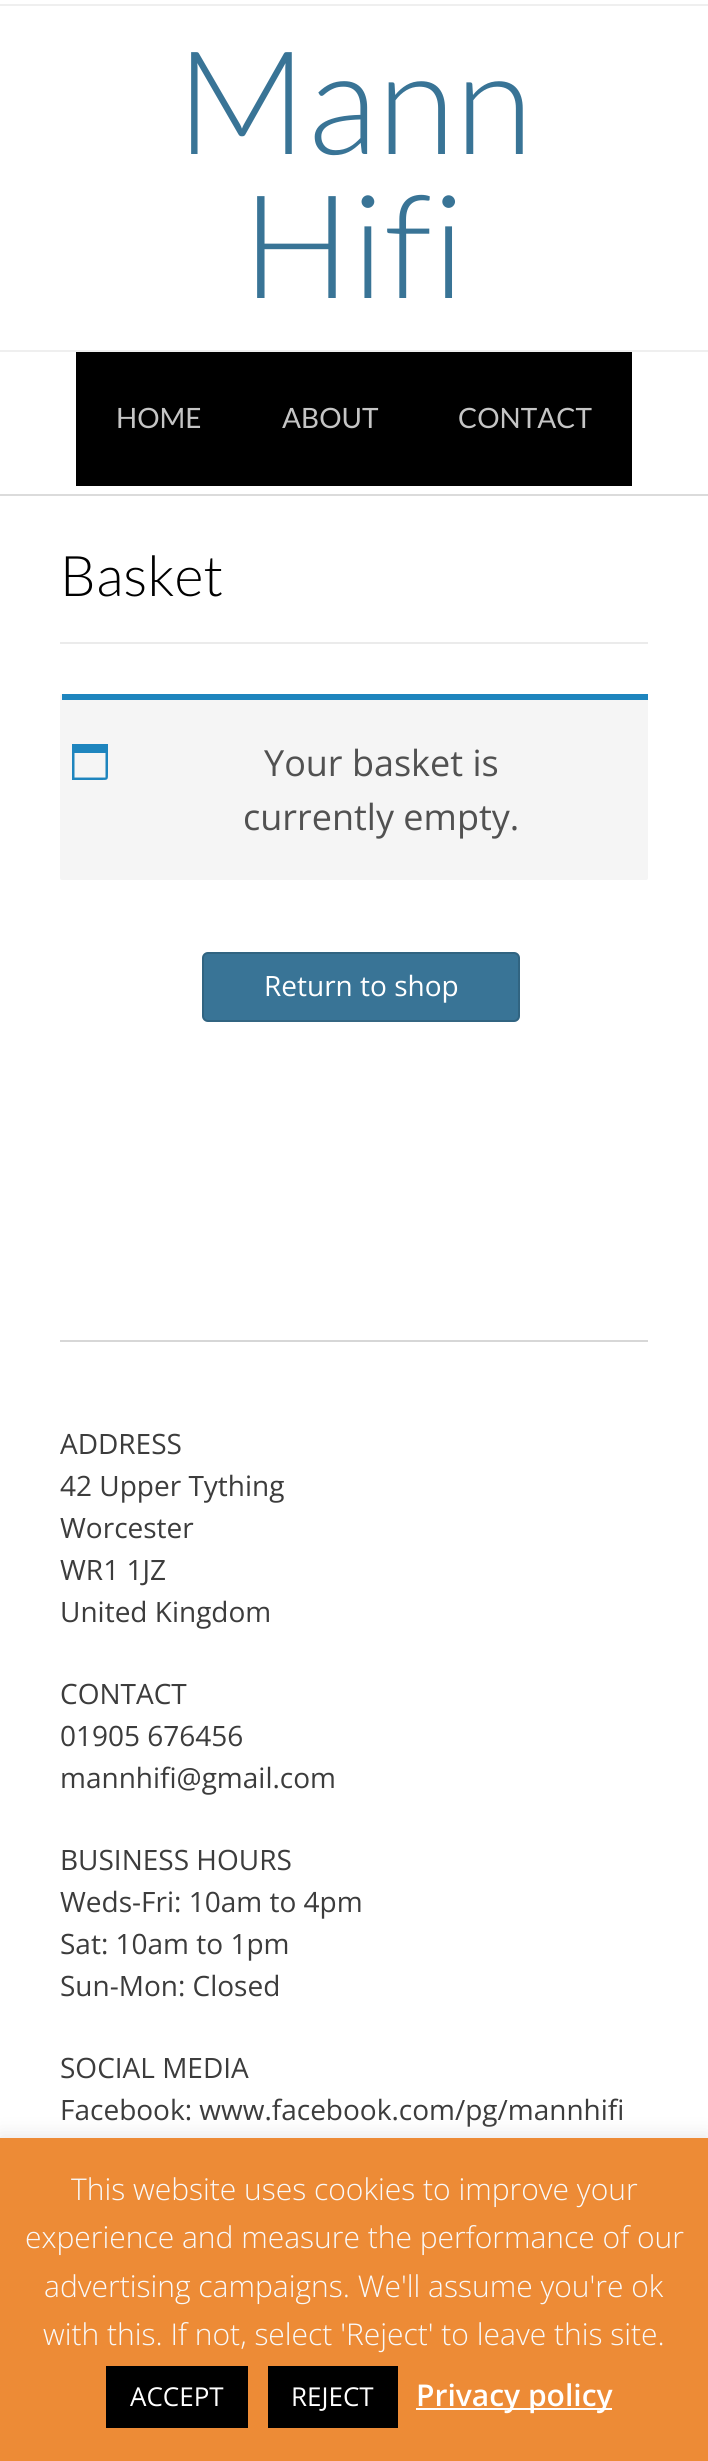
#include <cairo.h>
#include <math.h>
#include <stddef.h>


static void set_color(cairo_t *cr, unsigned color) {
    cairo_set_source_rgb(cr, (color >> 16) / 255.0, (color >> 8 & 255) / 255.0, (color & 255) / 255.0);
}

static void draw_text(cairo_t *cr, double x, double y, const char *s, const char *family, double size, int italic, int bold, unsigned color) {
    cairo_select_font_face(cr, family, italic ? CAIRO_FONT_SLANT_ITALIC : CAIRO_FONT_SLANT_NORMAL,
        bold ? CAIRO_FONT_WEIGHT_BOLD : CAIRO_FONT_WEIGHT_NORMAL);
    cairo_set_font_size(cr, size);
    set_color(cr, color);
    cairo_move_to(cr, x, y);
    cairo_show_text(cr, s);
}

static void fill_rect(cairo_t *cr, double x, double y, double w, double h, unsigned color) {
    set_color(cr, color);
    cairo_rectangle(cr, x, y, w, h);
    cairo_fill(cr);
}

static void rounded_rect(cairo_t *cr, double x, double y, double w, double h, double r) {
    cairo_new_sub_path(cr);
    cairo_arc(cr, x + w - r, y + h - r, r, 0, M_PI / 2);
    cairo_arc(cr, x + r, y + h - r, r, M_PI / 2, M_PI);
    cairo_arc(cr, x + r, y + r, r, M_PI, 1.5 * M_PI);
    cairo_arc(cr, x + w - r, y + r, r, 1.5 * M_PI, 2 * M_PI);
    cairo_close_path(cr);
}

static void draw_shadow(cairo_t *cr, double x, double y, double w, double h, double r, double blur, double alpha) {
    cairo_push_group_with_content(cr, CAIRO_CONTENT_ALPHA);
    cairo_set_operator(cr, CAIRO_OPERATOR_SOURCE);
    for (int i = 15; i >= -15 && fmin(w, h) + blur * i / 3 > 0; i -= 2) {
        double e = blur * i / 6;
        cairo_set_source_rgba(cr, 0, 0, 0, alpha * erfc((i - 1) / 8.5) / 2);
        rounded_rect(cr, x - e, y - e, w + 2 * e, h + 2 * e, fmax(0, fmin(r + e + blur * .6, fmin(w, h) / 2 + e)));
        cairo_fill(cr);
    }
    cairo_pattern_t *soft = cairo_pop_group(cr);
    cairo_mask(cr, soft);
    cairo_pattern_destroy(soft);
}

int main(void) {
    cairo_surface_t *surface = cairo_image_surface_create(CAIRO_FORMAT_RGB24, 708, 2461);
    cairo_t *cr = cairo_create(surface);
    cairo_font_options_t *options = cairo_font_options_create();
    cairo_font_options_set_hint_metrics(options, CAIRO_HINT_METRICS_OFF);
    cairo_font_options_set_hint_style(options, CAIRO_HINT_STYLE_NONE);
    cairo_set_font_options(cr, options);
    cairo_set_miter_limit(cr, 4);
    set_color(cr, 0xFFFFFF);
    cairo_paint(cr);
    fill_rect(cr, 0, 494, 708, 2, 0xDBDBDB);
    fill_rect(cr, 0, 4, 708, 2, 0xEFEFEF);
    draw_text(cr, 176, 154, "Mann", "Lato Light", 144, 0, 0, 0x397496);
    draw_text(cr, 242, 298, "Hifi", "Lato Light", 144, 0, 0, 0x397496);
    fill_rect(cr, 0, 350, 708, 2, 0xEFEFEF);
    fill_rect(cr, 76, 352, 556, 134, 0x000000);
    draw_text(cr, 116, 428, "HOME", "Lato", 28, 0, 0, 0xC5C5C5);
    draw_text(cr, 282, 428, "ABOUT", "Lato", 28, 0, 0, 0xC5C5C5);
    draw_text(cr, 458, 428, "CONTACT", "Lato", 28, 0, 0, 0xC5C5C5);
    fill_rect(cr, 60, 642, 588, 2, 0xEBEBEB);
    draw_text(cr, 60, 596, "Basket", "Lato Light", 56, 0, 0, 0x000000);
    set_color(cr, 0xF5F5F5);
    rounded_rect(cr, 60, 694, 588, 186, 2);
    cairo_fill(cr);
    fill_rect(cr, 62, 694, 586, 6, 0x1E85BE);
    cairo_new_path(cr);
    cairo_move_to(cr, 105.5, 753);
    cairo_line_to(cr, 74.5, 753);
    cairo_line_to(cr, 74.5, 777.5);
    cairo_line_to(cr, 105.5, 777.5);
    cairo_close_path(cr);
    cairo_move_to(cr, 108, 744);
    cairo_line_to(cr, 108, 772);
    cairo_curve_to(cr, 108, 780.5, 108.5, 780, 100, 780);
    cairo_line_to(cr, 72, 780);
    cairo_line_to(cr, 72, 744);
    cairo_close_path(cr);
    cairo_fill(cr);
    draw_text(cr, 264, 776, "Your basket is", "Open Sans", 36, 0, 0, 0x515151);
    draw_text(cr, 243, 830, "currently empty.", "Open Sans", 36, 0, 0, 0x515151);
    set_color(cr, 0x397496);
    rounded_rect(cr, 202, 952, 318, 70, 6);
    cairo_fill(cr);
    rounded_rect(cr, 203, 953, 316, 68, 5);
    cairo_set_source_rgba(cr, 0, 0, 0, 0.14);
    cairo_stroke(cr);
    draw_text(cr, 264, 996, "Return to shop", "Open Sans", 28, 0, 0, 0xFFFFFF);
    fill_rect(cr, 60, 1340, 588, 2, 0xD7D7D7);
    draw_text(cr, 60, 1454, "ADDRESS", "Open Sans", 28, 0, 0, 0x3C3C3C);
    draw_text(cr, 60, 1496, "42 Upper Tything", "Open Sans", 28, 0, 0, 0x3C3C3C);
    draw_text(cr, 60, 1538, "Worcester", "Open Sans", 28, 0, 0, 0x3C3C3C);
    draw_text(cr, 60, 1580, "WR1 1JZ", "Open Sans", 28, 0, 0, 0x3C3C3C);
    draw_text(cr, 60, 1622, "United Kingdom", "Open Sans", 28, 0, 0, 0x3C3C3C);
    draw_text(cr, 60, 1704, "CONTACT", "Open Sans", 28, 0, 0, 0x3C3C3C);
    draw_text(cr, 60, 1746, "01905 676456", "Open Sans", 28, 0, 0, 0x3C3C3C);
    draw_text(cr, 60, 1788, "mannhifi@gmail.com", "Open Sans", 28, 0, 0, 0x3C3C3C);
    draw_text(cr, 60, 1870, "BUSINESS HOURS", "Open Sans", 28, 0, 0, 0x3C3C3C);
    draw_text(cr, 60, 1912, "Weds-Fri: 10am to 4pm", "Open Sans", 28, 0, 0, 0x3C3C3C);
    draw_text(cr, 60, 1954, "Sat: 10am to 1pm", "Open Sans", 28, 0, 0, 0x3C3C3C);
    draw_text(cr, 60, 1996, "Sun-Mon: Closed", "Open Sans", 28, 0, 0, 0x3C3C3C);
    draw_text(cr, 60, 2078, "SOCIAL MEDIA", "Open Sans", 28, 0, 0, 0x3C3C3C);
    draw_text(cr, 60, 2120, "Facebook: www.facebook.com/pg/mannhifi", "Open Sans", 28, 0, 0, 0x3C3C3C);
    set_color(cr, 0xACABAB);
    draw_shadow(cr, 0, 2136, 708, 324, 0, 10, 0.3);
    fill_rect(cr, 0, 2138, 708, 323, 0xED8B36);
    draw_text(cr, 71, 2200, "This website uses cookies to improve your", "Open Sans Light", 30, 0, 0, 0xF9F9F9);
    draw_text(cr, 25, 2248, "experience and measure the performance of our", "Open Sans Light", 30, 0, 0, 0xF9F9F9);
    draw_text(cr, 44, 2297, "advertising campaigns. We'll assume you're ok", "Open Sans Light", 30, 0, 0, 0xF9F9F9);
    draw_text(cr, 43, 2345, "with this. If not, select 'Reject' to leave this site.", "Open Sans Light", 30, 0, 0, 0xF9F9F9);
    fill_rect(cr, 106, 2366, 142, 62, 0x000000);
    draw_text(cr, 130, 2406, "ACCEPT", "Open Sans", 26, 0, 0, 0xFFFFFF);
    fill_rect(cr, 268, 2366, 130, 62, 0x000000);
    draw_text(cr, 291, 2406, "REJECT", "Open Sans", 26, 0, 0, 0xFFFFFF);
    fill_rect(cr, 416, 2408, 196, 2, 0xFFFFFF);
    draw_text(cr, 416, 2406, "Privacy policy", "Open Sans SemiBold", 30, 0, 0, 0xFFFFFF);
    cairo_surface_write_to_png(surface, "output.png");
    cairo_font_options_destroy(options);
    cairo_destroy(cr);
    cairo_surface_destroy(surface);
    return 0;
}
